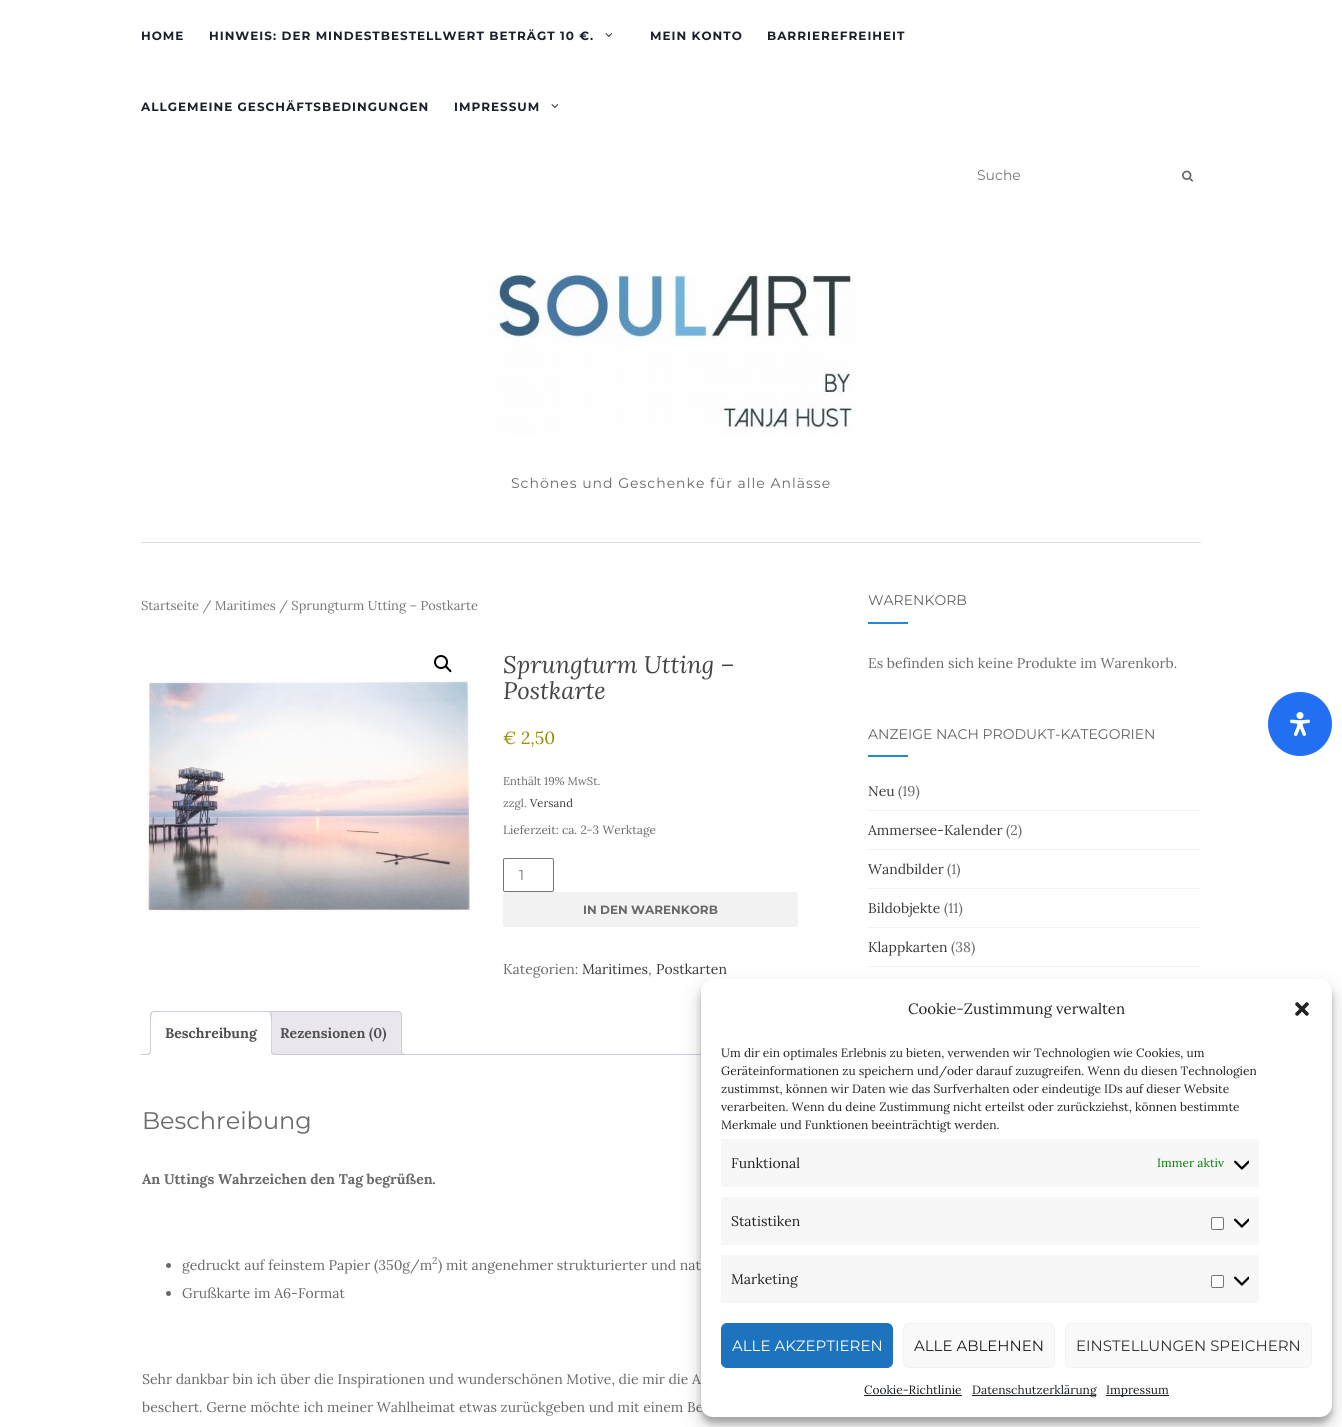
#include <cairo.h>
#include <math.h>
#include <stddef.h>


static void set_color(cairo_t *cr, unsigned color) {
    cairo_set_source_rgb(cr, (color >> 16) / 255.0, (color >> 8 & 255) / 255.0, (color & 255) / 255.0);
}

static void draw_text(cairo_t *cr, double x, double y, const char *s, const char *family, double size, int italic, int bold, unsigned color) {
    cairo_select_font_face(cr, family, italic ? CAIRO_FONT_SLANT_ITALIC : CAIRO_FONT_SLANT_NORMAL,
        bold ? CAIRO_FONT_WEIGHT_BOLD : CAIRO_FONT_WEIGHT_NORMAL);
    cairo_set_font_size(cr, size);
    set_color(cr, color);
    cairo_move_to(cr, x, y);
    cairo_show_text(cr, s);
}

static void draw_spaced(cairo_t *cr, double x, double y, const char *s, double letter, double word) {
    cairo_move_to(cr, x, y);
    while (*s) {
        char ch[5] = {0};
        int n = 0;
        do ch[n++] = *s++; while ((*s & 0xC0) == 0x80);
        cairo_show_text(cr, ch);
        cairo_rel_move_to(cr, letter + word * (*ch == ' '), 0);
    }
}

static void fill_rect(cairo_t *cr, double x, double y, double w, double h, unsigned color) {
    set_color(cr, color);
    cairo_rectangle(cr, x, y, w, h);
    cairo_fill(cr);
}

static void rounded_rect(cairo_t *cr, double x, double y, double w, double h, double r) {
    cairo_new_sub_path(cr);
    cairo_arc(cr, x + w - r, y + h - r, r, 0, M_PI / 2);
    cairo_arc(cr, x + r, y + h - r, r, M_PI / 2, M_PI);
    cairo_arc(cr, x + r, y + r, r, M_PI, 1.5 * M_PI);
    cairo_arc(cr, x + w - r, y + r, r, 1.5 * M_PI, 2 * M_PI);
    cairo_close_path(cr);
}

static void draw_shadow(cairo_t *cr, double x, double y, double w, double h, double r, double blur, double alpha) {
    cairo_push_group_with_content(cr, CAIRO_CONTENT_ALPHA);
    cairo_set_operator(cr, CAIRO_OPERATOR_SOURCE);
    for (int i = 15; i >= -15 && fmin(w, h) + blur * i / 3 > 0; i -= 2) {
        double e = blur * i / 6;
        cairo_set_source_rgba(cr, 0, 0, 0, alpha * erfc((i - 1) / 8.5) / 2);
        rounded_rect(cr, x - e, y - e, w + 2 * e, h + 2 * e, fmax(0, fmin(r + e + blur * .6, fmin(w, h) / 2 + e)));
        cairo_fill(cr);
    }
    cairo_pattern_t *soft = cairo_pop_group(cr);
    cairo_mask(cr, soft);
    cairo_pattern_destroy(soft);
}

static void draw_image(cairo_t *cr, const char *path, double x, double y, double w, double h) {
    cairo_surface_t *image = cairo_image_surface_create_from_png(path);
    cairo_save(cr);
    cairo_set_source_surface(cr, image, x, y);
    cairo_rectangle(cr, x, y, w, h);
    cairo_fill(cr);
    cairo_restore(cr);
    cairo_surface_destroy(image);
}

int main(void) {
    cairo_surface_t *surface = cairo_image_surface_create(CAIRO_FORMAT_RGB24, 1342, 1427);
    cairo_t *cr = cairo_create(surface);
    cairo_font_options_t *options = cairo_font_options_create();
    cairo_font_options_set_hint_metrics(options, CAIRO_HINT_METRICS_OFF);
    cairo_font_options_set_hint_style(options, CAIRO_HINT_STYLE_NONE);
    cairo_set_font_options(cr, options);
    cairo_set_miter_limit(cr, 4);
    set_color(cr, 0xFFFFFF);
    cairo_paint(cr);
    cairo_select_font_face(cr, "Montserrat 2 Thin", CAIRO_FONT_SLANT_NORMAL, CAIRO_FONT_WEIGHT_NORMAL);
    cairo_set_font_size(cr, 12);
    set_color(cr, 0x1C202A);
    draw_spaced(cr, 141, 40, "HOME", 1, 0);
    draw_spaced(cr, 209, 40, "HINWEIS: DER MINDESTBESTELLWERT BETRÄGT 10 €.", 1, 0);
    draw_image(cr, "assets/img1.png", 605, 33, 8, 4);
    draw_spaced(cr, 650, 40, "MEIN KONTO", 1, 0);
    draw_spaced(cr, 767, 40, "BARRIEREFREIHEIT", 1, 0);
    draw_spaced(cr, 141, 111, "ALLGEMEINE GESCHÄFTSBEDINGUNGEN", 1, 0);
    draw_spaced(cr, 454, 111, "IMPRESSUM", 1, 0);
    draw_image(cr, "assets/img1.png", 551, 104, 8, 4);
    draw_text(cr, 977, 180, "Suche", "Montserrat Thin", 14, 0, 0, 0x757575);
    draw_image(cr, "assets/img2.png", 1182, 170, 12, 12);
    draw_image(cr, "assets/img3.png", 487, 274, 368, 161);
    set_color(cr, 0x696969);
    draw_spaced(cr, 511, 488, "Schönes und Geschenke für alle Anlässe", 1, 0);
    fill_rect(cr, 141, 542, 1060, 1, 0xDDDDDD);
    draw_text(cr, 141, 610, "Startseite / Maritimes / Sprungturm Utting – Postkarte", "Lora", 12.9, 0, 0, 0x757575);
    draw_image(cr, "assets/img4.png", 146, 679, 325, 233);
    set_color(cr, 0xFFFFFF);
    cairo_arc(cr, 443, 664, 18, 0, 2 * M_PI);
    cairo_fill(cr);
    cairo_arc(cr, 441, 662, 6, 0, 2 * M_PI);
    set_color(cr, 0x000000);
    cairo_stroke(cr);
    cairo_new_path(cr);
    cairo_move_to(cr, 445.5, 666);
    cairo_curve_to(cr, 447, 665, 448.5, 667.5, 449, 668.5);
    cairo_curve_to(cr, 449.5, 669, 452.5, 670.5, 451, 672);
    cairo_curve_to(cr, 450, 673, 448.5, 670.5, 447.5, 669.5);
    cairo_curve_to(cr, 447, 669, 444.5, 667.5, 445.5, 666);
    cairo_close_path(cr);
    cairo_fill(cr);
    draw_text(cr, 503, 673, "Sprungturm Utting –", "Lora", 24, 1, 0, 0x444444);
    draw_text(cr, 503, 699, "Postkarte", "Lora", 24, 1, 0, 0x444444);
    draw_text(cr, 503, 744, "€ 2,50", "Lora", 17.5, 0, 0, 0x958E09);
    draw_text(cr, 503, 785, "Enthält 19% MwSt.", "Lora", 11.25, 0, 0, 0x696969);
    draw_text(cr, 503, 807, "zzgl.", "Lora", 11.25, 0, 0, 0x696969);
    draw_text(cr, 530, 807, "Versand", "Lora", 11.25, 0, 0, 0x393939);
    draw_text(cr, 503, 834, "Lieferzeit: ca. 2-3 Werktage", "Lora", 11.9, 0, 0, 0x696969);
    rounded_rect(cr, 503.5, 858.5, 50, 33, 1.5);
    set_color(cr, 0x767676);
    cairo_set_line_width(cr, 1);
    cairo_stroke(cr);
    draw_text(cr, 519, 880, "1", "Montserrat Thin", 14, 0, 0, 0x696969);
    set_color(cr, 0xF2F2F2);
    rounded_rect(cr, 503, 892, 295, 35, 3);
    cairo_fill(cr);
    draw_text(cr, 583, 914, "IN DEN WARENKORB", "Montserrat 2 Thin", 12, 0, 0, 0x696969);
    draw_text(cr, 503, 974, "Kategorien:", "Lora", 14, 0, 0, 0x696969);
    draw_text(cr, 582, 974, "Maritimes", "Lora", 14, 0, 0, 0x393939);
    draw_text(cr, 648, 974, ",", "Lora", 14, 0, 0, 0x696969);
    draw_text(cr, 656, 974, "Postkarten", "Lora", 14, 0, 0, 0x393939);
    set_color(cr, 0xE9E6ED);
    cairo_new_path(cr);
    cairo_move_to(cr, 269, 1011.5);
    cairo_line_to(cr, 398, 1011.5);
    cairo_curve_to(cr, 400, 1011.5, 401.5, 1013, 401.5, 1015);
    cairo_line_to(cr, 401.5, 1054.5);
    cairo_line_to(cr, 265.5, 1054.5);
    cairo_line_to(cr, 265.5, 1015);
    cairo_curve_to(cr, 265.5, 1013, 267, 1011.5, 269, 1011.5);
    cairo_close_path(cr);
    cairo_fill_preserve(cr);
    set_color(cr, 0xCFC8D8);
    cairo_stroke(cr);
    cairo_save(cr);
    cairo_rectangle(cr, 141, 1011, 697, 44);
    cairo_clip(cr);
    set_color(cr, 0xE9E6ED);
    cairo_new_path(cr);
    cairo_move_to(cr, 399, 1052);
    cairo_curve_to(cr, 399, 1055.5, 400.5, 1057, 404, 1057);
    cairo_line_to(cr, 404, 1055);
    cairo_curve_to(cr, 402.5, 1054.5, 401.5, 1053.5, 401, 1052);
    cairo_close_path(cr);
    cairo_fill(cr);
    cairo_restore(cr);
    cairo_set_fill_rule(cr, CAIRO_FILL_RULE_EVEN_ODD);
    cairo_new_path(cr);
    cairo_move_to(cr, 401, 1050);
    cairo_line_to(cr, 406, 1050);
    cairo_line_to(cr, 406, 1055);
    cairo_curve_to(cr, 403.5, 1055, 401, 1054, 401, 1051);
    cairo_close_path(cr);
    cairo_move_to(cr, 402, 1050);
    cairo_line_to(cr, 406, 1050);
    cairo_line_to(cr, 406, 1054);
    cairo_curve_to(cr, 404, 1054, 402, 1053.5, 402, 1051);
    cairo_close_path(cr);
    cairo_fill(cr);
    fill_rect(cr, 141, 1054, 560, 1, 0xCFC8D8);
    set_color(cr, 0xFFFFFF);
    cairo_new_path(cr);
    cairo_move_to(cr, 154, 1011);
    cairo_line_to(cr, 268, 1011);
    cairo_curve_to(cr, 270, 1011, 272, 1013, 272, 1015);
    cairo_line_to(cr, 272, 1055);
    cairo_line_to(cr, 150, 1055);
    cairo_line_to(cr, 150, 1015);
    cairo_curve_to(cr, 150, 1013, 152, 1011, 154, 1011);
    cairo_close_path(cr);
    cairo_fill(cr);
    set_color(cr, 0xCFC8D8);
    cairo_set_fill_rule(cr, CAIRO_FILL_RULE_WINDING);
    cairo_new_path(cr);
    cairo_move_to(cr, 154, 1011);
    cairo_line_to(cr, 151, 1012);
    cairo_line_to(cr, 152, 1013);
    cairo_line_to(cr, 154, 1012);
    cairo_line_to(cr, 268, 1012);
    cairo_line_to(cr, 270, 1013);
    cairo_line_to(cr, 271, 1012);
    cairo_line_to(cr, 268, 1011);
    cairo_close_path(cr);
    cairo_fill(cr);
    cairo_new_path(cr);
    cairo_move_to(cr, 272, 1055);
    cairo_line_to(cr, 272, 1015);
    cairo_curve_to(cr, 272, 1014, 272, 1013, 271, 1012);
    cairo_line_to(cr, 270, 1013);
    cairo_curve_to(cr, 272, 1015, 271, 1049, 271, 1054);
    cairo_close_path(cr);
    cairo_fill(cr);
    set_color(cr, 0xFFFFFF);
    cairo_new_path(cr);
    cairo_move_to(cr, 272, 1055);
    cairo_line_to(cr, 271, 1054);
    cairo_line_to(cr, 151, 1054);
    cairo_line_to(cr, 150, 1055);
    cairo_close_path(cr);
    cairo_fill(cr);
    set_color(cr, 0xCFC8D8);
    cairo_new_path(cr);
    cairo_move_to(cr, 150, 1055);
    cairo_line_to(cr, 151, 1054);
    cairo_curve_to(cr, 151, 1049, 150, 1015, 152, 1013);
    cairo_line_to(cr, 151, 1012);
    cairo_line_to(cr, 150, 1015);
    cairo_close_path(cr);
    cairo_fill(cr);
    draw_text(cr, 165, 1038, "Beschreibung", "Lora", 14, 0, 1, 0x515151);
    cairo_save(cr);
    cairo_rectangle(cr, 141, 1011, 697, 44);
    cairo_clip(cr);
    set_color(cr, 0xFFFFFF);
    cairo_new_path(cr);
    cairo_move_to(cr, 148, 1055);
    cairo_line_to(cr, 148, 1057);
    cairo_curve_to(cr, 151.5, 1057, 153, 1055.5, 153, 1052);
    cairo_line_to(cr, 151, 1052);
    cairo_curve_to(cr, 150.5, 1053.5, 149.5, 1054.5, 148, 1055);
    cairo_close_path(cr);
    cairo_fill(cr);
    cairo_restore(cr);
    set_color(cr, 0xCFC8D8);
    cairo_set_fill_rule(cr, CAIRO_FILL_RULE_EVEN_ODD);
    cairo_new_path(cr);
    cairo_move_to(cr, 146, 1050);
    cairo_line_to(cr, 151, 1050);
    cairo_curve_to(cr, 151, 1053.5, 149.5, 1055, 146, 1055);
    cairo_close_path(cr);
    cairo_move_to(cr, 146, 1050);
    cairo_line_to(cr, 150, 1050);
    cairo_curve_to(cr, 150, 1053, 149, 1054, 146, 1054);
    cairo_close_path(cr);
    cairo_fill(cr);
    cairo_save(cr);
    cairo_set_fill_rule(cr, CAIRO_FILL_RULE_WINDING);
    cairo_rectangle(cr, 141, 1011, 697, 44);
    cairo_clip(cr);
    set_color(cr, 0xFFFFFF);
    cairo_new_path(cr);
    cairo_move_to(cr, 269, 1052);
    cairo_curve_to(cr, 269, 1055.5, 270.5, 1057, 274, 1057);
    cairo_line_to(cr, 274, 1055);
    cairo_curve_to(cr, 272.5, 1054.5, 271.5, 1053.5, 271, 1052);
    cairo_close_path(cr);
    cairo_fill(cr);
    cairo_restore(cr);
    cairo_new_path(cr);
    cairo_move_to(cr, 271, 1050);
    cairo_line_to(cr, 276, 1050);
    cairo_line_to(cr, 276, 1055);
    cairo_curve_to(cr, 273.5, 1055, 271, 1054, 271, 1051);
    cairo_close_path(cr);
    cairo_move_to(cr, 272, 1050);
    cairo_line_to(cr, 276, 1050);
    cairo_line_to(cr, 276, 1054);
    cairo_curve_to(cr, 274, 1054, 272, 1053.5, 272, 1051);
    cairo_close_path(cr);
    cairo_fill(cr);
    draw_text(cr, 280, 1038, "Rezensionen (0)", "Lora", 14, 0, 1, 0x515151);
    draw_text(cr, 142, 1129, "Beschreibung", "Montserrat Thin", 24, 0, 0, 0x696969);
    draw_text(cr, 142, 1184, "An Uttings Wahrzeichen den Tag begrüßen.", "Lora", 14, 0, 1, 0x696969);
    cairo_new_path(cr);
    cairo_arc(cr, 168.5, 1265.5, 2.5, 0, 2 * M_PI);
    cairo_fill(cr);
    draw_text(cr, 182, 1270, "gedruckt auf feinstem Papier (350g/m", "Lora", 14, 0, 0, 0x696969);
    draw_text(cr, 432, 1264, "2", "Lora", 10, 0, 0, 0x696969);
    draw_text(cr, 438, 1270, ") mit angenehmer strukturierter und nat", "Lora", 14, 0, 0, 0x696969);
    cairo_new_path(cr);
    cairo_arc(cr, 168.5, 1293.5, 2.5, 0, 2 * M_PI);
    cairo_fill(cr);
    draw_text(cr, 182, 1298, "Grußkarte im A6-Format", "Lora", 14, 0, 0, 0x696969);
    draw_text(cr, 142, 1384, "Sehr dankbar bin ich über die Inspirationen und wunderschönen Motive, die mir die A", "Lora", 14, 0, 0, 0x696969);
    draw_text(cr, 142, 1412, "beschert. Gerne möchte ich meiner Wahlheimat etwas zurückgeben und mit einem Be", "Lora", 14, 0, 0, 0x696969);
    draw_text(cr, 868, 605, "WARENKORB", "Montserrat Thin", 14, 0, 0, 0x636467);
    fill_rect(cr, 868, 622, 40, 2, 0x2187DE);
    draw_text(cr, 868, 668, "Es befinden sich keine Produkte im Warenkorb.", "Lora", 14, 0, 0, 0x696969);
    draw_text(cr, 868, 739, "ANZEIGE NACH PRODUKT-KATEGORIEN", "Montserrat Thin", 14, 0, 0, 0x636467);
    fill_rect(cr, 868, 755, 40, 2, 0x2187DE);
    fill_rect(cr, 868, 810, 333, 1, 0xF2F2F2);
    draw_text(cr, 868, 796, "Neu", "Lora", 14, 0, 0, 0x393939);
    draw_text(cr, 898, 796, "(19)", "Lora", 14, 0, 0, 0x696969);
    fill_rect(cr, 868, 849, 333, 1, 0xF2F2F2);
    draw_text(cr, 868, 835, "Ammersee-Kalender", "Lora", 14, 0, 0, 0x393939);
    draw_text(cr, 1006, 835, "(2)", "Lora", 14, 0, 0, 0x696969);
    fill_rect(cr, 868, 888, 333, 1, 0xF2F2F2);
    draw_text(cr, 868, 874, "Wandbilder", "Lora", 14, 0, 0, 0x393939);
    draw_text(cr, 947, 874, "(1)", "Lora", 14, 0, 0, 0x696969);
    fill_rect(cr, 868, 927, 333, 1, 0xF2F2F2);
    draw_text(cr, 868, 913, "Bildobjekte", "Lora", 14, 0, 0, 0x393939);
    draw_text(cr, 944, 913, "(11)", "Lora", 14, 0, 0, 0x696969);
    fill_rect(cr, 868, 966, 333, 1, 0xF2F2F2);
    draw_text(cr, 868, 952, "Klappkarten", "Lora", 14, 0, 0, 0x393939);
    draw_text(cr, 951, 952, "(38)", "Lora", 14, 0, 0, 0x696969);
    set_color(cr, 0x216FF3);
    cairo_new_path(cr);
    cairo_arc(cr, 1300, 724, 32, 0, 2 * M_PI);
    cairo_fill(cr);
    draw_image(cr, "assets/img5.png", 1290, 712, 20, 24);
    set_color(cr, 0x000000);
    draw_shadow(cr, 701, 985, 631, 438, 12, 3, 0.23);
    draw_shadow(cr, 701, 989, 631, 438, 12, 10, 0.19);
    set_color(cr, 0xFFFFFF);
    rounded_rect(cr, 701, 979, 631, 438, 12);
    cairo_fill(cr);
    draw_text(cr, 908, 1014, "Cookie-Zustimmung verwalten", "Lora", 15, 0, 0, 0x222222);
    draw_image(cr, "assets/img6.png", 1295, 1002, 14, 14);
    draw_text(cr, 721, 1057, "Um dir ein optimales Erlebnis zu bieten, verwenden wir Technologien wie Cookies, um", "Lora", 12, 0, 0, 0x222222);
    draw_text(cr, 721, 1075, "Geräteinformationen zu speichern und/oder darauf zuzugreifen. Wenn du diesen Technologien", "Lora", 12, 0, 0, 0x222222);
    draw_text(cr, 721, 1093, "zustimmst, können wir Daten wie das Surfverhalten oder eindeutige IDs auf dieser Website", "Lora", 12, 0, 0, 0x222222);
    draw_text(cr, 721, 1111, "verarbeiten. Wenn du deine Zustimmung nicht erteilst oder zurückziehst, können bestimmte", "Lora", 12, 0, 0, 0x222222);
    draw_text(cr, 721, 1129, "Merkmale und Funktionen beeinträchtigt werden.", "Lora", 12, 0, 0, 0x222222);
    fill_rect(cr, 721, 1139, 538, 48, 0xF7F7F7);
    draw_text(cr, 731, 1168, "Funktional", "Lora", 14, 0, 0, 0x222222);
    draw_text(cr, 1157, 1167, "Immer aktiv", "Lora", 12, 0, 0, 0x008000);
    draw_image(cr, "assets/img7.png", 1234, 1160, 15, 10);
    fill_rect(cr, 721, 1197, 538, 48, 0xF7F7F7);
    draw_text(cr, 731, 1226, "Statistiken", "Lora", 14, 0, 0, 0x222222);
    set_color(cr, 0xFFFFFF);
    rounded_rect(cr, 1211.5, 1217.5, 12, 12, 1.5);
    cairo_fill_preserve(cr);
    set_color(cr, 0x767676);
    cairo_stroke(cr);
    draw_image(cr, "assets/img7.png", 1234, 1218, 15, 10);
    fill_rect(cr, 721, 1255, 538, 48, 0xF7F7F7);
    draw_text(cr, 731, 1284, "Marketing", "Lora", 14, 0, 0, 0x222222);
    set_color(cr, 0xFFFFFF);
    rounded_rect(cr, 1211.5, 1275.5, 12, 12, 1.5);
    cairo_fill_preserve(cr);
    set_color(cr, 0x767676);
    cairo_stroke(cr);
    draw_image(cr, "assets/img7.png", 1234, 1276, 15, 10);
    set_color(cr, 0x1E73BE);
    rounded_rect(cr, 721.5, 1323.5, 171, 44, 5.5);
    cairo_fill_preserve(cr);
    cairo_stroke(cr);
    draw_text(cr, 732, 1351, "ALLE AKZEPTIEREN", "Montserrat Thin", 15, 0, 0, 0xFFFFFF);
    set_color(cr, 0xF9F9F9);
    rounded_rect(cr, 903.5, 1323.5, 151, 44, 5.5);
    cairo_fill_preserve(cr);
    set_color(cr, 0xF2F2F2);
    cairo_stroke(cr);
    draw_text(cr, 914, 1351, "ALLE ABLEHNEN", "Montserrat Thin", 15, 0, 0, 0x222222);
    set_color(cr, 0xF9F9F9);
    rounded_rect(cr, 1065.5, 1323.5, 246, 44, 5.5);
    cairo_fill_preserve(cr);
    set_color(cr, 0xF2F2F2);
    cairo_stroke(cr);
    draw_text(cr, 1076, 1351, "EINSTELLUNGEN SPEICHERN", "Montserrat Thin", 15, 0, 0, 0x333333);
    draw_text(cr, 864, 1394, "Cookie-Richtlinie", "Lora", 12, 0, 0, 0x191E23);
    fill_rect(cr, 864, 1395, 98, 1, 0x191E23);
    fill_rect(cr, 972, 1395, 124, 1, 0x191E23);
    draw_text(cr, 972, 1394, "Datenschutzerklärung", "Lora", 12, 0, 0, 0x191E23);
    fill_rect(cr, 1106, 1395, 63, 1, 0x191E23);
    draw_text(cr, 1106, 1394, "Impressum", "Lora", 12, 0, 0, 0x191E23);
    cairo_surface_write_to_png(surface, "output.png");
    cairo_font_options_destroy(options);
    cairo_destroy(cr);
    cairo_surface_destroy(surface);
    return 0;
}
